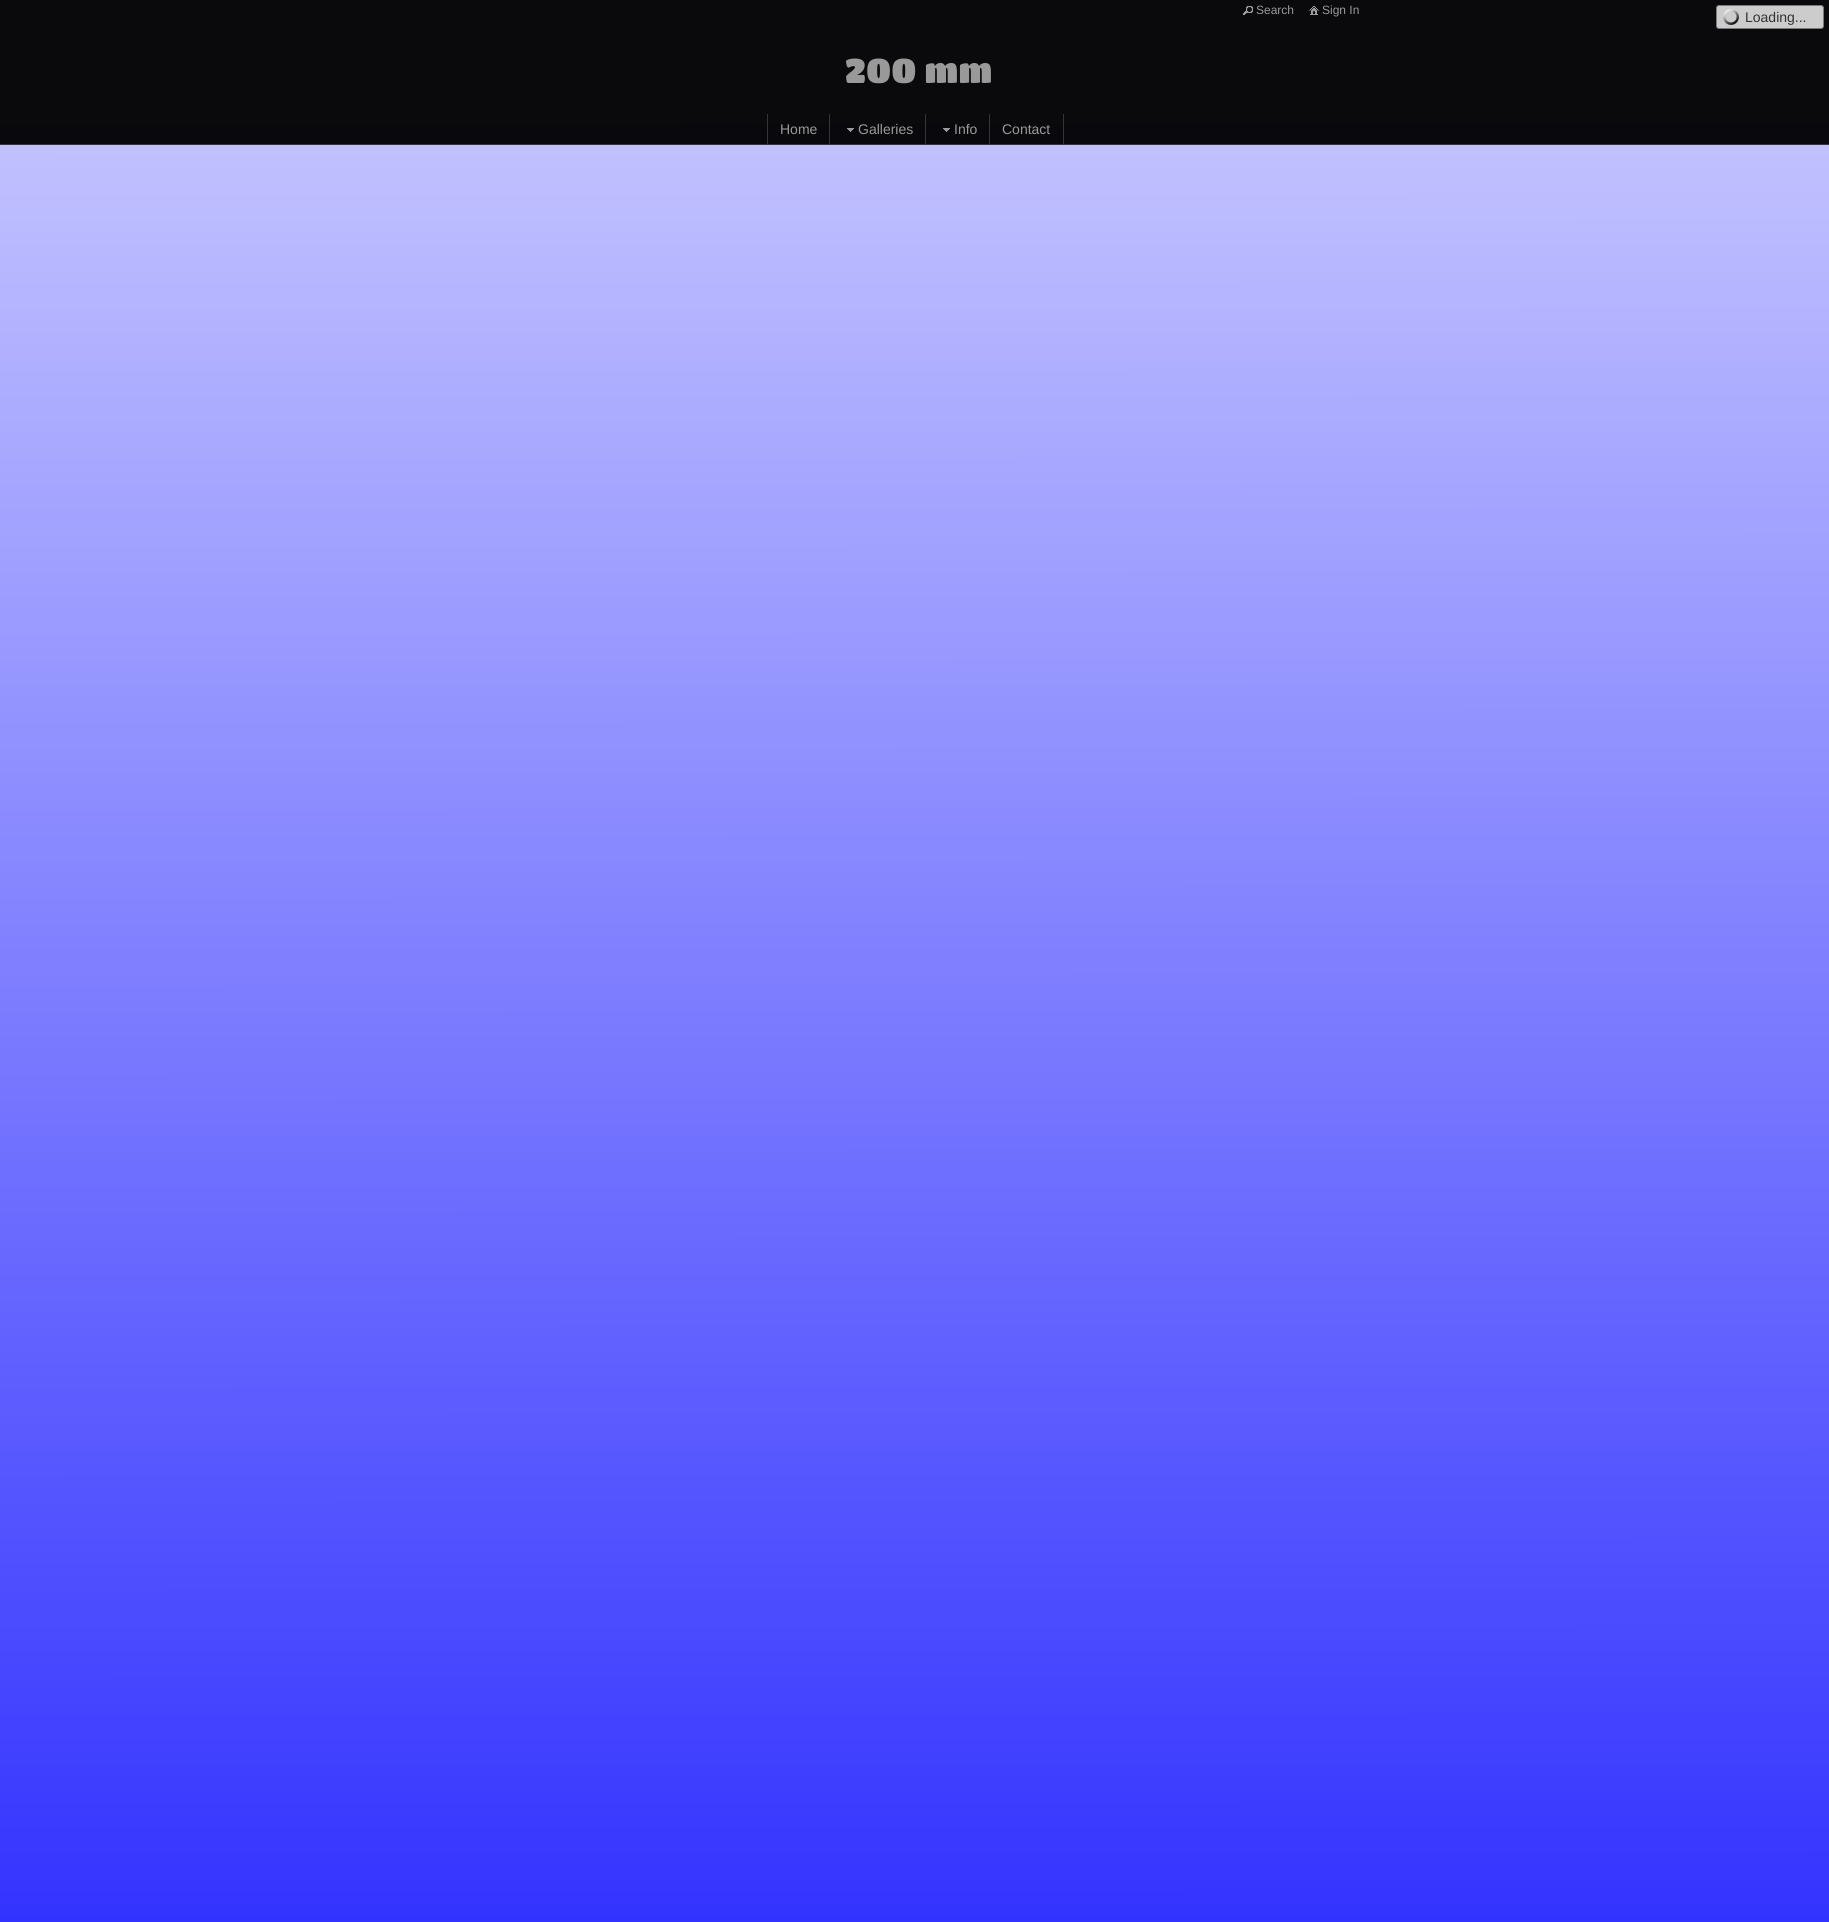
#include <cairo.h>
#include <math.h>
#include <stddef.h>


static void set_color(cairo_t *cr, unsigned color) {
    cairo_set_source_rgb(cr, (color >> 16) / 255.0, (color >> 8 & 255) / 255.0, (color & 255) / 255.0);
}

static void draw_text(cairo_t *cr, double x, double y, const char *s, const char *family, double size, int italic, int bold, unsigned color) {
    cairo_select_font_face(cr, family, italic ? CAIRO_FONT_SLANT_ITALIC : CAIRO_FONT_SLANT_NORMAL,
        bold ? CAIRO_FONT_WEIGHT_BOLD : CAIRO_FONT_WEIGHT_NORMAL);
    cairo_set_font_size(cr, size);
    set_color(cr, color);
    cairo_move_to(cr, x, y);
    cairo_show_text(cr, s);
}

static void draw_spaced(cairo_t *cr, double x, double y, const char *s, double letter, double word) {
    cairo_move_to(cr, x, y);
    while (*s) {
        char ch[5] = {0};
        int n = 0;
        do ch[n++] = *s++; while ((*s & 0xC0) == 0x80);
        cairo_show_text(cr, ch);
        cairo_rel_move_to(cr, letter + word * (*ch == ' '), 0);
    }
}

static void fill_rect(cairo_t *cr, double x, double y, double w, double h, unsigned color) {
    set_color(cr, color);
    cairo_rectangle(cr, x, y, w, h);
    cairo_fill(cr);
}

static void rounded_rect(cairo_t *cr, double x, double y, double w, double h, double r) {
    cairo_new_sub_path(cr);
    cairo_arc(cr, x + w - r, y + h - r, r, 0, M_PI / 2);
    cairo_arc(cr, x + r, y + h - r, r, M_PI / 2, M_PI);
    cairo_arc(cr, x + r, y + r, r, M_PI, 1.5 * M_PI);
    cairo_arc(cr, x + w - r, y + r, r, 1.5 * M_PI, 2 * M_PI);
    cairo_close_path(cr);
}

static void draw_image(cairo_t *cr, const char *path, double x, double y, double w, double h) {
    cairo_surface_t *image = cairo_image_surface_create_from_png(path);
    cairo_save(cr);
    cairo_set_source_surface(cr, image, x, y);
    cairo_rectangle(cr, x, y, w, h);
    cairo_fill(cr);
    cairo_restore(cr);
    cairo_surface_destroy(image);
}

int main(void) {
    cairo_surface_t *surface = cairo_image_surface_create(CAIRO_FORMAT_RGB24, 1829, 1922);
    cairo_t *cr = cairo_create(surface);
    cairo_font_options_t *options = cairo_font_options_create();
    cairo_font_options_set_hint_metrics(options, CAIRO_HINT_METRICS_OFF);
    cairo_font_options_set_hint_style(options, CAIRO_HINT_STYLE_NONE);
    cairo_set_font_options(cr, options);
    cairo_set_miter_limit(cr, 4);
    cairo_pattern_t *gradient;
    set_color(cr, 0xFFFFFF);
    cairo_paint(cr);
    gradient = cairo_pattern_create_linear(914, 0, 915, 1922);
    cairo_pattern_add_color_stop_rgba(gradient, 0, 0.8, 0.8, 1, 1);
    cairo_pattern_add_color_stop_rgba(gradient, 1, 0.2, 0.2, 1, 1);
    cairo_set_source(cr, gradient);
    cairo_pattern_destroy(gradient);
    cairo_rectangle(cr, 0, 145, 1829, 1777);
    cairo_fill(cr);
    gradient = cairo_pattern_create_linear(914, 0, 915, 1922);
    cairo_pattern_add_color_stop_rgba(gradient, 0, 0.039, 0.039, 0.051, 1);
    cairo_pattern_add_color_stop_rgba(gradient, 1, 0.012, 0.012, 0.051, 1);
    cairo_set_source(cr, gradient);
    cairo_pattern_destroy(gradient);
    cairo_rectangle(cr, 0, 0, 1829, 144);
    cairo_fill(cr);
    fill_rect(cr, 0, 144, 1829, 1, 0x353535);
    draw_image(cr, "assets/img1.png", 1243, 6, 10, 9);
    draw_text(cr, 1256, 14, "Search", "Liberation Sans", 12, 0, 0, 0x999999);
    draw_image(cr, "assets/img2.png", 1309, 6, 10, 9);
    draw_text(cr, 1322, 14, "Sign In", "Liberation Sans", 12, 0, 0, 0x999999);
    cairo_select_font_face(cr, "Titan One", CAIRO_FONT_SLANT_NORMAL, CAIRO_FONT_WEIGHT_NORMAL);
    cairo_set_font_size(cr, 34);
    draw_spaced(cr, 845, 83, "200 mm", 0.5, 0);
    fill_rect(cr, 1063, 114, 1, 30, 0x353535);
    fill_rect(cr, 767, 114, 1, 30, 0x353535);
    draw_text(cr, 780, 134, "Home", "Liberation Sans", 14, 0, 0, 0x999999);
    fill_rect(cr, 829, 114, 1, 30, 0x353535);
    draw_image(cr, "assets/img3.png", 847, 128, 7, 4);
    draw_text(cr, 858, 134, "Galleries", "Liberation Sans", 14, 0, 0, 0x999999);
    fill_rect(cr, 925, 114, 1, 30, 0x353535);
    draw_image(cr, "assets/img3.png", 943, 128, 7, 4);
    draw_text(cr, 954, 134, "Info", "Liberation Sans", 14, 0, 0, 0x999999);
    fill_rect(cr, 989, 114, 1, 30, 0x353535);
    draw_text(cr, 1002, 134, "Contact", "Liberation Sans", 14, 0, 0, 0x999999);
    set_color(cr, 0xCCCCCC);
    rounded_rect(cr, 1716.5, 5.5, 107, 23, 2.5);
    cairo_fill_preserve(cr);
    set_color(cr, 0x7A7A7A);
    cairo_set_line_width(cr, 1);
    cairo_stroke(cr);
    draw_image(cr, "assets/img4.png", 1723, 9, 16, 16);
    draw_text(cr, 1745, 22, "Loading...", "Liberation Sans", 14, 0, 0, 0x333333);
    cairo_surface_write_to_png(surface, "output.png");
    cairo_font_options_destroy(options);
    cairo_destroy(cr);
    cairo_surface_destroy(surface);
    return 0;
}
